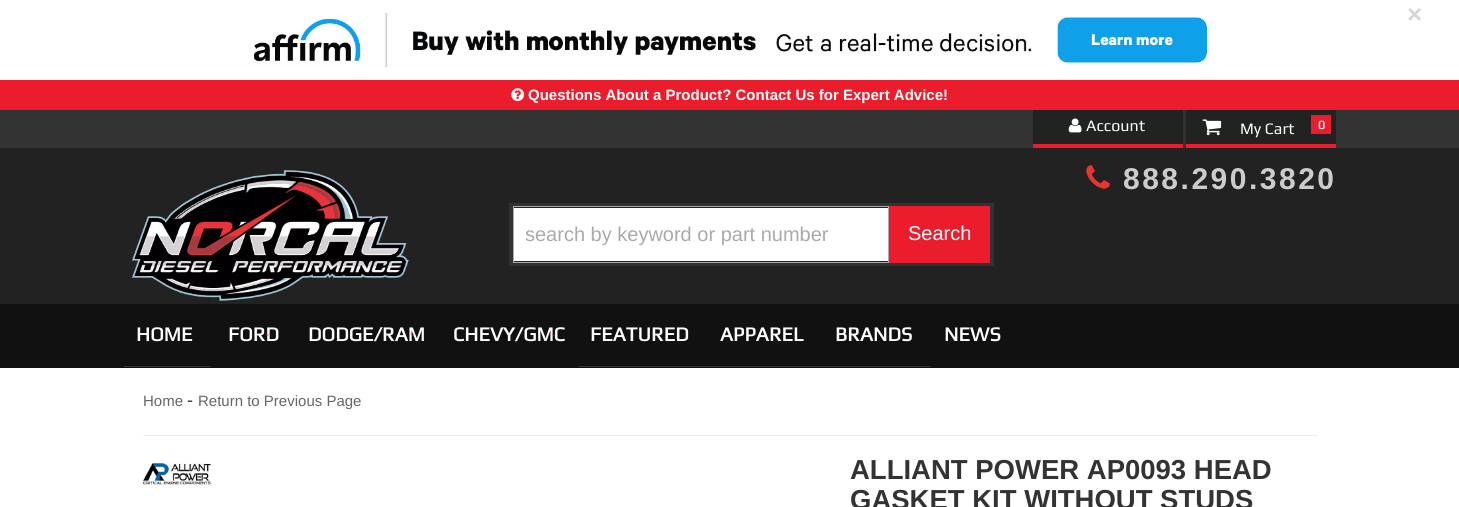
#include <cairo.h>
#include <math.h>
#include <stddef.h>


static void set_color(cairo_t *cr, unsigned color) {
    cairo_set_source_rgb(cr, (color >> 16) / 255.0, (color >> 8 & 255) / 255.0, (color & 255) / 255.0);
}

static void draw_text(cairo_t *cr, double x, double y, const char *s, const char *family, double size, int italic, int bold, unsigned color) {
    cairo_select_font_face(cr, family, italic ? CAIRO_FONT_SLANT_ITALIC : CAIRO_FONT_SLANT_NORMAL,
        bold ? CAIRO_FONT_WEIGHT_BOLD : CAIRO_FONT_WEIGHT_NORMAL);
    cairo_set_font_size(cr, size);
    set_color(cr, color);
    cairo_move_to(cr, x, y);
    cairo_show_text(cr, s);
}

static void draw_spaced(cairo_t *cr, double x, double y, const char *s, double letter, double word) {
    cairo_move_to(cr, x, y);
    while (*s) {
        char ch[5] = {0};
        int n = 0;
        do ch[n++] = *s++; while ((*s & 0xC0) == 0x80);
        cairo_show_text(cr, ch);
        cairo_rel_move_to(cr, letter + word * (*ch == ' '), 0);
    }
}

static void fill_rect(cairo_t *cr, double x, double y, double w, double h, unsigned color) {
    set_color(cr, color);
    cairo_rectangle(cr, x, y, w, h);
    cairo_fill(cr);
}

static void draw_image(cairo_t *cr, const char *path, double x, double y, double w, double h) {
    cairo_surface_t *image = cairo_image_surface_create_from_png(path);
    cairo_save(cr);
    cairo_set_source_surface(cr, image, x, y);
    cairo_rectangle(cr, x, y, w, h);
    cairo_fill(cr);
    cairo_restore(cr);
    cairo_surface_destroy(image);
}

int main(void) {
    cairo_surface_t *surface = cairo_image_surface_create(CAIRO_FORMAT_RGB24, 1459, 507);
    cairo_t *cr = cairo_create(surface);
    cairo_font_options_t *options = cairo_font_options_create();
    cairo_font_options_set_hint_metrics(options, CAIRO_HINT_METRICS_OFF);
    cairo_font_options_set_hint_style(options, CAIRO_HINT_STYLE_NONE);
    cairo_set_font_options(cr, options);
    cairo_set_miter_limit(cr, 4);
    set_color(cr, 0xFFFFFF);
    cairo_paint(cr);
    fill_rect(cr, 0, 80, 1459, 30, 0xEB1D2D);
    draw_text(cr, 1407, 23, "×", "Liberation Sans", 26, 0, 1, 0xD6D6D6);
    draw_image(cr, "assets/img1.png", 511, 88, 14, 14);
    draw_text(cr, 528, 100, "Questions About a Product? Contact Us for Expert Advice!", "Liberation Sans", 15, 0, 1, 0xFFFFFF);
    draw_image(cr, "assets/img2.png", 254, 12, 953, 56);
    fill_rect(cr, 0, 148, 1459, 156, 0x222222);
    fill_rect(cr, 0, 110, 1459, 38, 0x333333);
    fill_rect(cr, 1033, 110, 150, 34, 0x222222);
    fill_rect(cr, 1033, 144, 150, 4, 0xEB1D2D);
    draw_image(cr, "assets/img3.png", 1068, 118, 14, 15);
    draw_text(cr, 1086, 131, "Account", "Play", 16, 0, 0, 0xFFFFFF);
    fill_rect(cr, 1186, 110, 150, 34, 0x222222);
    fill_rect(cr, 1186, 144, 150, 4, 0xEB1D2D);
    draw_image(cr, "assets/img4.png", 1202, 119, 20, 17);
    draw_text(cr, 1240, 134, "My Cart", "Play", 16, 0, 0, 0xFFFFFF);
    fill_rect(cr, 1311, 115, 20, 19, 0xEB1D2D);
    draw_text(cr, 1318, 129, "0", "Play", 12, 0, 1, 0xFFFFFF);
    draw_image(cr, "assets/img5.png", 132, 170, 277, 131);
    cairo_rectangle(cr, 511, 205, 481, 59);
    set_color(cr, 0x333333);
    cairo_set_line_width(cr, 4);
    cairo_stroke(cr);
    fill_rect(cr, 889, 206, 101, 57, 0xEB1D2D);
    cairo_set_source_rgba(cr, 0, 0, 0, 0.04);
    cairo_set_fill_rule(cr, CAIRO_FILL_RULE_EVEN_ODD);
    cairo_new_path(cr);
    cairo_move_to(cr, 511, 206);
    cairo_line_to(cr, 511, 265);
    cairo_line_to(cr, 890, 265);
    cairo_line_to(cr, 890, 206);
    cairo_close_path(cr);
    cairo_move_to(cr, 512, 206);
    cairo_line_to(cr, 512, 262);
    cairo_line_to(cr, 889, 262);
    cairo_line_to(cr, 889, 206);
    cairo_close_path(cr);
    cairo_fill(cr);
    cairo_rectangle(cr, 513.5, 206.5, 375, 56);
    set_color(cr, 0xAAAAAA);
    cairo_set_line_width(cr, 1);
    cairo_stroke(cr);
    fill_rect(cr, 514, 208, 374, 53, 0xFFFFFF);
    draw_text(cr, 525, 241, "search by keyword or part number", "Liberation Sans", 20, 0, 0, 0xAAAAAA);
    draw_text(cr, 908, 240, "Search", "Liberation Sans", 20, 0, 0, 0xFFFFFF);
    draw_image(cr, "assets/img6.png", 1086, 165, 24, 24);
    cairo_select_font_face(cr, "Liberation Sans", CAIRO_FONT_SLANT_NORMAL, CAIRO_FONT_WEIGHT_BOLD);
    cairo_set_font_size(cr, 30);
    set_color(cr, 0xCCCCCC);
    draw_spaced(cr, 1123, 189, "888.290.3820", 2.5, 0);
    fill_rect(cr, 0, 304, 1459, 64, 0x111111);
    fill_rect(cr, 124, 366, 87, 1, 0x333333);
    draw_text(cr, 136, 341, "HOME", "Play", 20, 0, 1, 0xFFFFFF);
    draw_text(cr, 228, 341, "FORD", "Play", 20, 0, 1, 0xFFFFFF);
    draw_image(cr, "assets/img7.png", 265, 333, 5, 4);
    draw_text(cr, 308, 341, "DODGE/RAM", "Play", 20, 0, 1, 0xFFFFFF);
    draw_image(cr, "assets/img8.png", 410, 333, 5, 4);
    draw_text(cr, 453, 341, "CHEVY/GMC", "Play", 20, 0, 1, 0xFFFFFF);
    draw_image(cr, "assets/img9.png", 551, 333, 5, 4);
    fill_rect(cr, 578, 366, 353, 1, 0x333333);
    draw_text(cr, 590, 341, "FEATURED", "Play", 20, 0, 1, 0xFFFFFF);
    draw_text(cr, 720, 341, "APPAREL", "Play", 20, 0, 1, 0xFFFFFF);
    draw_text(cr, 835, 341, "BRANDS", "Play", 20, 0, 1, 0xFFFFFF);
    draw_text(cr, 944, 341, "NEWS", "Play", 20, 0, 1, 0xFFFFFF);
    draw_text(cr, 143, 406, "Home", "Liberation Sans", 15, 0, 0, 0x666666);
    draw_text(cr, 187, 406, "-", "Liberation Sans", 18, 0, 0, 0x333333);
    draw_text(cr, 198, 406, "Return to Previous Page", "Liberation Sans", 15, 0, 0, 0x666666);
    fill_rect(cr, 143, 435, 1175, 1, 0xEEEEEE);
    draw_image(cr, "assets/img10.png", 142, 460, 69, 25);
    draw_text(cr, 850, 479, "ALLIANT POWER AP0093 HEAD", "Liberation Sans", 27.5, 0, 1, 0x333333);
    draw_text(cr, 850, 509, "GASKET KIT WITHOUT STUDS", "Liberation Sans", 27.5, 0, 1, 0x333333);
    cairo_surface_write_to_png(surface, "output.png");
    cairo_font_options_destroy(options);
    cairo_destroy(cr);
    cairo_surface_destroy(surface);
    return 0;
}
